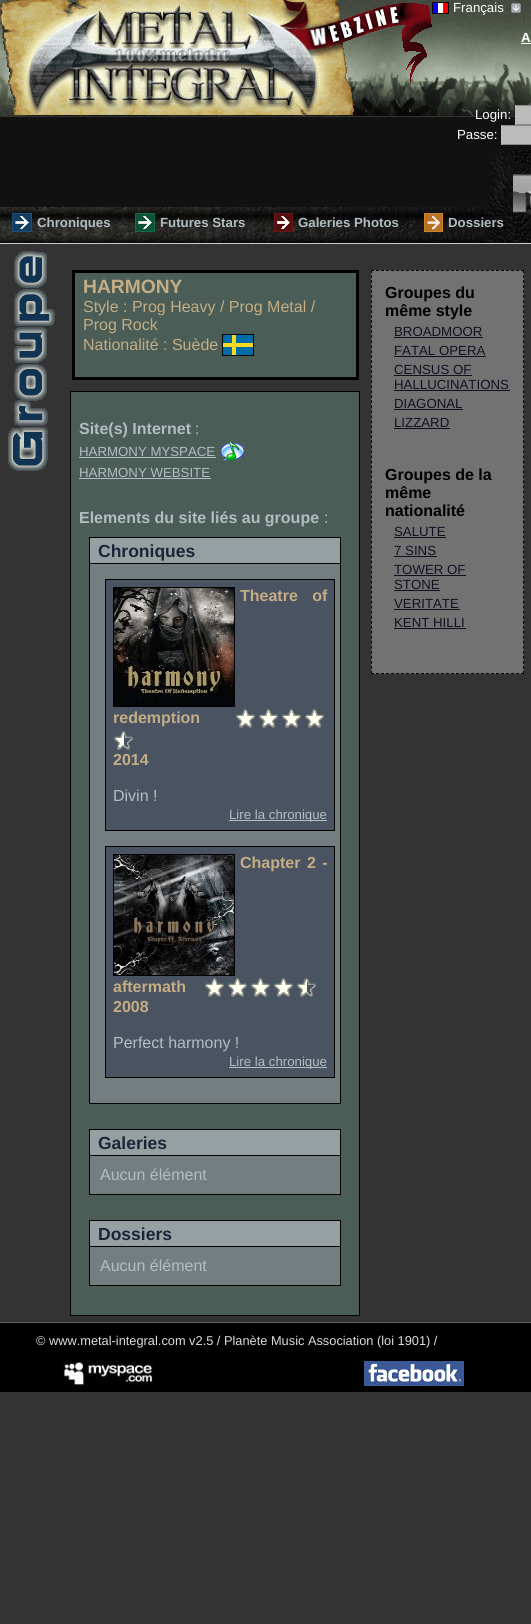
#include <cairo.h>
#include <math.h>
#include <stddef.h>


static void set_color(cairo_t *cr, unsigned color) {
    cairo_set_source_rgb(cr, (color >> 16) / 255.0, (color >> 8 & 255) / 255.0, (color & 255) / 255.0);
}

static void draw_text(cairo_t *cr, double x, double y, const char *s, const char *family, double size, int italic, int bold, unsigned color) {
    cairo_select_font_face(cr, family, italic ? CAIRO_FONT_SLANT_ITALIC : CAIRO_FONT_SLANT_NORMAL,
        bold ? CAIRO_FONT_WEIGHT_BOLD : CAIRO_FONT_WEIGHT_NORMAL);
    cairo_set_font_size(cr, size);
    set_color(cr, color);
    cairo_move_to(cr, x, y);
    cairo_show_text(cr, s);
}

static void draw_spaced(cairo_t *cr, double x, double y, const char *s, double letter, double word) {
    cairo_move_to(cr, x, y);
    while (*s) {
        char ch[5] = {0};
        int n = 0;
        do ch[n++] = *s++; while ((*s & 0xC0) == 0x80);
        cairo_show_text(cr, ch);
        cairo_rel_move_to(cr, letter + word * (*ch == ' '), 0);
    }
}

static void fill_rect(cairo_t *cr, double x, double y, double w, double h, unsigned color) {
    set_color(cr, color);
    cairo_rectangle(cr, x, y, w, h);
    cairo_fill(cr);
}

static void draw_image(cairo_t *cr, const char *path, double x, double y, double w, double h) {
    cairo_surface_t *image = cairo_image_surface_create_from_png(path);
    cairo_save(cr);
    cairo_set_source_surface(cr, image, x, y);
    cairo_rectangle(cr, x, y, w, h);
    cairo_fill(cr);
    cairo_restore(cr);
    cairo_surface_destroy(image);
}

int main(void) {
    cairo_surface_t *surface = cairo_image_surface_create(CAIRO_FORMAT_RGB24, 531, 1624);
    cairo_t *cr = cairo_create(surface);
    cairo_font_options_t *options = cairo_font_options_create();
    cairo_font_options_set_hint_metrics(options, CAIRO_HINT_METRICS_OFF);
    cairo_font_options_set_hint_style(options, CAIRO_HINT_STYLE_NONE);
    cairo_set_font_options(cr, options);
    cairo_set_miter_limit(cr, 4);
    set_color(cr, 0x333333);
    cairo_paint(cr);
    fill_rect(cr, 0, 117, 531, 90, 0x111111);
    draw_image(cr, "assets/img1.png", 0, 0, 531, 117);
    draw_image(cr, "assets/img2.png", 0, 0, 432, 115);
    cairo_rectangle(cr, 432.5, 2.5, 16, 11);
    set_color(cr, 0x000000);
    cairo_set_line_width(cr, 1);
    cairo_stroke(cr);
    draw_image(cr, "assets/img3.png", 433, 3, 15, 10);
    draw_text(cr, 453, 12, "Français", "Liberation Sans", 13.25, 0, 0, 0xFFFFFF);
    draw_image(cr, "assets/img4.png", 511, 3, 10, 10);
    draw_text(cr, 521, 42, "A", "Liberation Sans", 13.25, 0, 1, 0xFFFFFF);
    fill_rect(cr, 521, 43, 10, 1, 0xFFFFFF);
    draw_text(cr, 475, 119, "Login:", "Liberation Sans", 13.25, 0, 0, 0xFFFFFF);
    fill_rect(cr, 515, 105, 16, 20, 0xBBBBBB);
    set_color(cr, 0x888888);
    cairo_new_path(cr);
    cairo_move_to(cr, 515, 105);
    cairo_line_to(cr, 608, 105);
    cairo_line_to(cr, 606, 106);
    cairo_line_to(cr, 517, 106);
    cairo_close_path(cr);
    cairo_move_to(cr, 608, 125);
    cairo_line_to(cr, 515, 125);
    cairo_line_to(cr, 517, 124);
    cairo_line_to(cr, 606, 124);
    cairo_close_path(cr);
    cairo_fill(cr);
    draw_text(cr, 457, 139, "Passe:", "Liberation Sans", 13.25, 0, 0, 0xFFFFFF);
    fill_rect(cr, 501, 125, 30, 20, 0xBBBBBB);
    set_color(cr, 0x888888);
    cairo_new_path(cr);
    cairo_move_to(cr, 501, 125);
    cairo_line_to(cr, 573, 125);
    cairo_line_to(cr, 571, 126);
    cairo_line_to(cr, 503, 126);
    cairo_close_path(cr);
    cairo_move_to(cr, 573, 145);
    cairo_line_to(cr, 501, 145);
    cairo_line_to(cr, 503, 144);
    cairo_line_to(cr, 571, 144);
    cairo_close_path(cr);
    cairo_fill(cr);
    draw_image(cr, "assets/img5.png", 0, 207, 513, 36);
    fill_rect(cr, 0, 243, 531, 1, 0xCCCCCC);
    draw_image(cr, "assets/img6.png", 12, 213, 20, 19);
    draw_text(cr, 37, 227, "Chroniques", "Liberation Sans", 13.25, 0, 1, 0xB2BDC1);
    draw_image(cr, "assets/img7.png", 135, 213, 20, 19);
    draw_text(cr, 160, 227, "Futures Stars", "Liberation Sans", 13.25, 0, 1, 0xB2BDC1);
    draw_image(cr, "assets/img8.png", 274, 213, 19, 19);
    draw_text(cr, 298, 227, "Galeries Photos", "Liberation Sans", 13.25, 0, 1, 0xB2BDC1);
    draw_image(cr, "assets/img9.png", 424, 213, 19, 19);
    draw_text(cr, 448, 227, "Dossiers", "Liberation Sans", 13.25, 0, 1, 0xB2BDC1);
    draw_image(cr, "assets/img10.png", 490, 150, 23, 57);
    draw_image(cr, "assets/img11.png", 513, 150, 18, 93);
    draw_image(cr, "assets/img12.png", 513, 174, 6, 40);
    draw_image(cr, "assets/img13.png", 519, 174, 12, 40);
    draw_image(cr, "assets/img14.png", 525, 191, 6, 24);
    draw_image(cr, "assets/img15.png", 8, 251, 47, 220);
    set_color(cr, 0x4A5D57);
    cairo_rectangle(cr, 73.5, 271.5, 284, 107);
    cairo_fill_preserve(cr);
    set_color(cr, 0x000000);
    cairo_set_line_width(cr, 3);
    cairo_stroke(cr);
    draw_text(cr, 83, 293, "HARMONY", "Liberation Sans", 19.25, 0, 1, 0xC4AD84);
    draw_text(cr, 83, 312, "Style : Prog Heavy / Prog Metal /", "Liberation Sans", 16, 0, 0, 0xC4AD84);
    draw_text(cr, 83, 330, "Prog Rock", "Liberation Sans", 16, 0, 0, 0xC4AD84);
    cairo_rectangle(cr, 222.5, 334.5, 31, 21);
    set_color(cr, 0x000000);
    cairo_set_line_width(cr, 1);
    cairo_stroke(cr);
    draw_text(cr, 83, 350, "Nationalité : Suède", "Liberation Sans", 16, 0, 0, 0xC4AD84);
    draw_image(cr, "assets/img16.png", 223, 335, 30, 20);
    fill_rect(cr, 371, 270, 153, 404, 0x727272);
    cairo_new_path(cr);
    cairo_move_to(cr, 371, 270.5);
    cairo_line_to(cr, 524, 270.5);
    set_color(cr, 0x000000);
    cairo_set_dash(cr, (double[]){3, 2}, 2, 0);
    cairo_stroke(cr);
    cairo_new_path(cr);
    cairo_move_to(cr, 523.5, 270);
    cairo_line_to(cr, 523.5, 674);
    cairo_set_dash(cr, (double[]){3, 2.01}, 2, 0);
    cairo_stroke(cr);
    cairo_new_path(cr);
    cairo_move_to(cr, 371, 673.5);
    cairo_line_to(cr, 524, 673.5);
    cairo_set_dash(cr, (double[]){3, 2}, 2, 0);
    cairo_stroke(cr);
    cairo_new_path(cr);
    cairo_move_to(cr, 371.5, 270);
    cairo_line_to(cr, 371.5, 674);
    cairo_set_dash(cr, (double[]){3, 2.01}, 2, 0);
    cairo_stroke(cr);
    draw_text(cr, 385, 298, "Groupes du", "Liberation Sans", 16, 0, 1, 0x000000);
    draw_text(cr, 385, 316, "même style", "Liberation Sans", 16, 0, 1, 0x000000);
    draw_text(cr, 394, 336, "BROADMOOR", "Liberation Sans", 13.25, 0, 0, 0x101220);
    fill_rect(cr, 394, 337, 89, 1, 0x101220);
    draw_text(cr, 394, 355, "FATAL OPERA", "Liberation Sans", 13.25, 0, 0, 0x101220);
    fill_rect(cr, 394, 356, 92, 1, 0x101220);
    draw_text(cr, 394, 374, "CENSUS OF", "Liberation Sans", 13.25, 0, 0, 0x101220);
    fill_rect(cr, 394, 375, 78, 1, 0x101220);
    draw_text(cr, 394, 389, "HALLUCINATIONS", "Liberation Sans", 13.25, 0, 0, 0x101220);
    fill_rect(cr, 394, 390, 116, 1, 0x101220);
    draw_text(cr, 394, 408, "DIAGONAL", "Liberation Sans", 13.25, 0, 0, 0x101220);
    fill_rect(cr, 394, 409, 69, 1, 0x101220);
    draw_text(cr, 394, 427, "LIZZARD", "Liberation Sans", 13.25, 0, 0, 0x101220);
    fill_rect(cr, 394, 428, 56, 1, 0x101220);
    draw_text(cr, 385, 480, "Groupes de la", "Liberation Sans", 16, 0, 1, 0x000000);
    draw_text(cr, 385, 498, "même", "Liberation Sans", 16, 0, 1, 0x000000);
    draw_text(cr, 385, 516, "nationalité", "Liberation Sans", 16, 0, 1, 0x000000);
    draw_text(cr, 394, 536, "SALUTE", "Liberation Sans", 13.25, 0, 0, 0x101220);
    fill_rect(cr, 394, 537, 52, 1, 0x101220);
    draw_text(cr, 394, 555, "7 SINS", "Liberation Sans", 13.25, 0, 0, 0x101220);
    fill_rect(cr, 394, 556, 43, 1, 0x101220);
    draw_text(cr, 394, 574, "TOWER OF", "Liberation Sans", 13.25, 0, 0, 0x101220);
    fill_rect(cr, 394, 575, 72, 1, 0x101220);
    draw_text(cr, 394, 589, "STONE", "Liberation Sans", 13.25, 0, 0, 0x101220);
    fill_rect(cr, 394, 590, 46, 1, 0x101220);
    draw_text(cr, 394, 608, "VERITATE", "Liberation Sans", 13.25, 0, 0, 0x101220);
    fill_rect(cr, 394, 609, 66, 1, 0x101220);
    draw_text(cr, 394, 627, "KENT HILLI", "Liberation Sans", 13.25, 0, 0, 0x101220);
    fill_rect(cr, 394, 628, 72, 1, 0x101220);
    fill_rect(cr, 71, 392, 288, 923, 0x4A5D57);
    fill_rect(cr, 70, 391, 290, 1, 0x000000);
    fill_rect(cr, 359, 391, 1, 925, 0x000000);
    fill_rect(cr, 70, 1315, 290, 1, 0x000000);
    fill_rect(cr, 70, 391, 1, 925, 0x000000);
    draw_text(cr, 79, 434, "Site(s) Internet", "Liberation Sans", 16, 0, 1, 0xB2BDC1);
    draw_text(cr, 195, 434, ":", "Liberation Sans", 16, 0, 0, 0xB2BDC1);
    draw_text(cr, 79, 456, "HARMONY MYSPACE", "Liberation Sans", 13.25, 0, 0, 0xB2BDC1);
    fill_rect(cr, 79, 457, 137, 1, 0xB2BDC1);
    draw_image(cr, "assets/img17.png", 221, 441, 23, 20);
    draw_text(cr, 79, 477, "HARMONY WEBSITE", "Liberation Sans", 13.25, 0, 0, 0xB2BDC1);
    fill_rect(cr, 79, 478, 132, 1, 0xB2BDC1);
    draw_text(cr, 79, 523, "Elements du site liés au groupe", "Liberation Sans", 16, 0, 1, 0xB2BDC1);
    draw_text(cr, 324, 523, ":", "Liberation Sans", 16, 0, 0, 0xB2BDC1);
    cairo_rectangle(cr, 89.5, 537.5, 251, 566);
    set_color(cr, 0x000000);
    cairo_set_dash(cr, NULL, 0, 0);
    cairo_stroke(cr);
    fill_rect(cr, 90, 538, 250, 25, 0x96A0A3);
    fill_rect(cr, 90, 563, 250, 1, 0x000000);
    draw_text(cr, 98, 557, "Chroniques", "Liberation Sans", 17.5, 0, 1, 0x1B2539);
    fill_rect(cr, 90, 564, 250, 539, 0x747E80);
    set_color(cr, 0x4A5361);
    cairo_rectangle(cr, 105.5, 579.5, 229, 251);
    cairo_fill_preserve(cr);
    set_color(cr, 0x000000);
    cairo_stroke(cr);
    cairo_rectangle(cr, 113.5, 587.5, 121, 119);
    cairo_stroke(cr);
    draw_image(cr, "assets/img18.png", 114, 588, 120, 118);
    cairo_set_font_size(cr, 16);
    set_color(cr, 0xC4AD84);
    draw_spaced(cr, 240, 601, "Theatre of", 0, 10);
    draw_text(cr, 113, 723, "redemption", "Liberation Sans", 16, 0, 1, 0xC4AD84);
    draw_image(cr, "assets/img19.png", 236, 709, 19, 19);
    draw_image(cr, "assets/img19.png", 259, 709, 19, 19);
    draw_image(cr, "assets/img19.png", 282, 709, 19, 19);
    draw_image(cr, "assets/img19.png", 305, 709, 19, 19);
    draw_image(cr, "assets/img20.png", 114, 731, 19, 19);
    draw_text(cr, 113, 765, "2014", "Liberation Sans", 16, 0, 1, 0xC4AD84);
    draw_text(cr, 113, 801, "Divin !", "Liberation Sans", 16, 0, 0, 0xB2BDC1);
    fill_rect(cr, 229, 820, 98, 1, 0xB2BDC1);
    draw_text(cr, 229, 819, "Lire la chronique", "Liberation Sans", 13.25, 0, 0, 0xB2BDC1);
    set_color(cr, 0x4A5361);
    cairo_rectangle(cr, 105.5, 846.5, 229, 231);
    cairo_fill_preserve(cr);
    set_color(cr, 0x000000);
    cairo_stroke(cr);
    cairo_rectangle(cr, 113.5, 854.5, 121, 121);
    cairo_stroke(cr);
    draw_image(cr, "assets/img21.png", 114, 855, 120, 120);
    cairo_select_font_face(cr, "Liberation Sans", CAIRO_FONT_SLANT_NORMAL, CAIRO_FONT_WEIGHT_BOLD);
    cairo_set_font_size(cr, 16);
    set_color(cr, 0xC4AD84);
    draw_spaced(cr, 240, 868, "Chapter 2 -", 0, 2);
    draw_text(cr, 113, 992, "aftermath", "Liberation Sans", 16, 0, 1, 0xC4AD84);
    draw_image(cr, "assets/img19.png", 205, 978, 19, 19);
    draw_image(cr, "assets/img19.png", 228, 978, 19, 19);
    draw_image(cr, "assets/img19.png", 251, 978, 19, 19);
    draw_image(cr, "assets/img19.png", 274, 978, 19, 19);
    draw_image(cr, "assets/img20.png", 297, 978, 19, 19);
    draw_text(cr, 113, 1012, "2008", "Liberation Sans", 16, 0, 1, 0xC4AD84);
    draw_text(cr, 113, 1048, "Perfect harmony !", "Liberation Sans", 16, 0, 0, 0xB2BDC1);
    fill_rect(cr, 229, 1067, 98, 1, 0xB2BDC1);
    draw_text(cr, 229, 1066, "Lire la chronique", "Liberation Sans", 13.25, 0, 0, 0xB2BDC1);
    cairo_rectangle(cr, 89.5, 1129.5, 251, 65);
    set_color(cr, 0x000000);
    cairo_stroke(cr);
    fill_rect(cr, 90, 1130, 250, 25, 0x96A0A3);
    fill_rect(cr, 90, 1155, 250, 1, 0x000000);
    draw_text(cr, 98, 1149, "Galeries", "Liberation Sans", 17.5, 0, 1, 0x1B2539);
    fill_rect(cr, 90, 1156, 250, 38, 0x747E80);
    draw_text(cr, 100, 1180, "Aucun élément", "Liberation Sans", 16, 0, 0, 0xB2BDC1);
    cairo_rectangle(cr, 89.5, 1220.5, 251, 65);
    set_color(cr, 0x000000);
    cairo_stroke(cr);
    fill_rect(cr, 90, 1221, 250, 25, 0x96A0A3);
    fill_rect(cr, 90, 1246, 250, 1, 0x000000);
    draw_text(cr, 98, 1240, "Dossiers", "Liberation Sans", 17.5, 0, 1, 0x1B2539);
    fill_rect(cr, 90, 1247, 250, 38, 0x747E80);
    draw_text(cr, 100, 1271, "Aucun élément", "Liberation Sans", 16, 0, 0, 0xB2BDC1);
    fill_rect(cr, 0, 1323, 531, 69, 0x000000);
    fill_rect(cr, 0, 1322, 531, 1, 0x666666);
    draw_text(cr, 36, 1345, "© www.metal-integral.com v2.5 / Planète Music Association (loi 1901) /", "Liberation Sans", 12.8, 0, 0, 0xDEDEDE);
    draw_image(cr, "assets/img22.png", 62, 1361, 92, 24);
    draw_image(cr, "assets/img23.png", 364, 1361, 100, 25);
    cairo_surface_write_to_png(surface, "output.png");
    cairo_font_options_destroy(options);
    cairo_destroy(cr);
    cairo_surface_destroy(surface);
    return 0;
}
